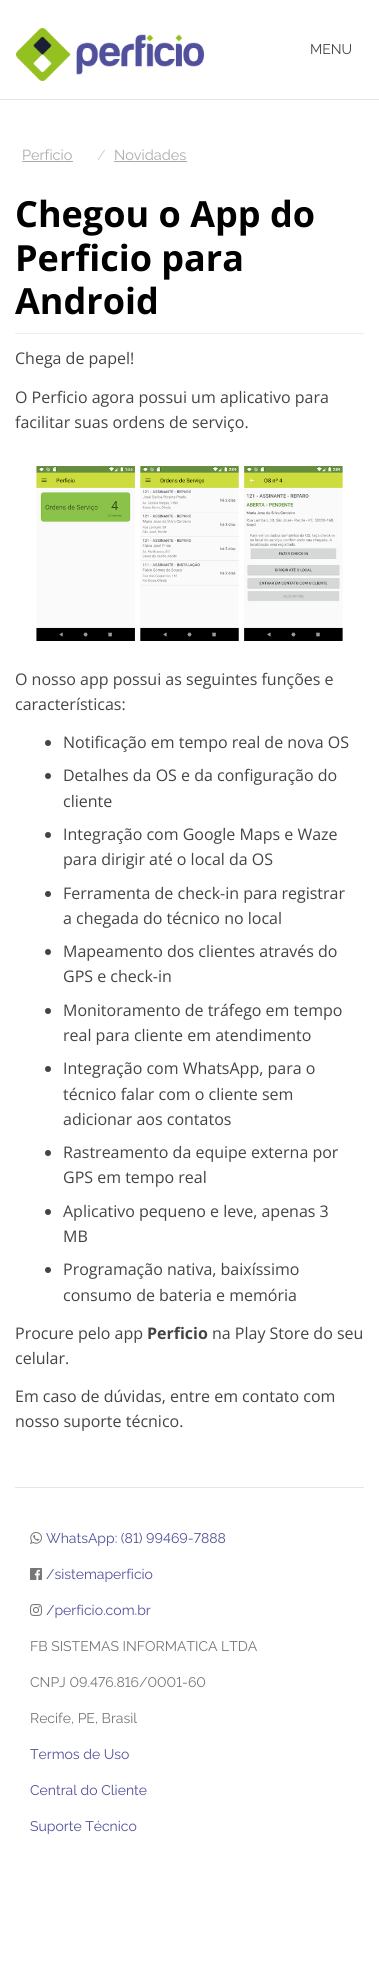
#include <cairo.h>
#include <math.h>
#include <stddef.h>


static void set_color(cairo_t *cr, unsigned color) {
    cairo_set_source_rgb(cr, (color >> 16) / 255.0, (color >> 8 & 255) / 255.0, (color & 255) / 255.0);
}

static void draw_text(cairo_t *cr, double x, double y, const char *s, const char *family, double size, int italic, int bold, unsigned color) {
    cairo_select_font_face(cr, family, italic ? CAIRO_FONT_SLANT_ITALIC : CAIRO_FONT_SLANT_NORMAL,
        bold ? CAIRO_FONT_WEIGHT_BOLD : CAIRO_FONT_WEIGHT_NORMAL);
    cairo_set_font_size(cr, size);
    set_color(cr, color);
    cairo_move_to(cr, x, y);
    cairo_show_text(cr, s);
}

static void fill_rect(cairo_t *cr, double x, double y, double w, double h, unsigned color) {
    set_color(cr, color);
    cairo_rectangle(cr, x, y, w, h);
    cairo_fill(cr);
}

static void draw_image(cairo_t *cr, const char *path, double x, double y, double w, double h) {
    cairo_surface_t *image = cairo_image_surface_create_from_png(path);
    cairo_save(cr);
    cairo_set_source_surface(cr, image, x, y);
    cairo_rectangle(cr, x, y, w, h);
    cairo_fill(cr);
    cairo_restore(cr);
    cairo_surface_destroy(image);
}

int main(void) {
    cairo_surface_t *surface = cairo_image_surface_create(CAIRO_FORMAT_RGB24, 379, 1985);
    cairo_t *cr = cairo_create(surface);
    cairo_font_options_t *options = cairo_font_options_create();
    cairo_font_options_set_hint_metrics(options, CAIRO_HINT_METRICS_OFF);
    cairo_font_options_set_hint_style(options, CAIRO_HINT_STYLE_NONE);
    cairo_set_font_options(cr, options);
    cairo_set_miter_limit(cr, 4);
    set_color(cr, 0xFFFFFF);
    cairo_paint(cr);
    fill_rect(cr, 0, 99, 379, 1, 0xE5E5E5);
    draw_image(cr, "assets/img1.png", 16, 28, 188, 53);
    draw_text(cr, 310, 54, "MENU", "Raleway", 14, 0, 0, 0x444444);
    draw_text(cr, 22, 160, "Perficio", "Raleway", 14.5, 0, 0, 0xAAAAAA);
    fill_rect(cr, 22, 161, 51, 1, 0xAAAAAA);
    draw_text(cr, 97, 160, "/", "Raleway", 14.5, 0, 0, 0xCCCCCC);
    draw_text(cr, 114, 160, "Novidades", "Raleway", 14.5, 0, 0, 0xAAAAAA);
    fill_rect(cr, 114, 161, 73, 1, 0xAAAAAA);
    fill_rect(cr, 15, 333, 349, 1, 0xEEEEEE);
    draw_text(cr, 15, 227, "Chegou o App do", "Open Sans", 36, 0, 1, 0x000000);
    draw_text(cr, 15, 271, "Perficio para", "Open Sans", 36, 0, 1, 0x000000);
    draw_text(cr, 15, 314, "Android", "Open Sans", 36, 0, 1, 0x000000);
    draw_text(cr, 15, 364, "Chega de papel!", "Open Sans", 16, 0, 0, 0x444444);
    draw_text(cr, 15, 403, "O Perficio agora possui um aplicativo para", "Open Sans", 16, 0, 0, 0x444444);
    draw_text(cr, 15, 428, "facilitar suas ordens de serviço.", "Open Sans", 16, 0, 0, 0x444444);
    draw_image(cr, "assets/img2.png", 36, 466, 307, 175);
    draw_text(cr, 15, 685, "O nosso app possui as seguintes funções e", "Open Sans", 16, 0, 0, 0x444444);
    draw_text(cr, 15, 710, "características:", "Open Sans", 16, 0, 0, 0x444444);
    cairo_new_path(cr);
    cairo_arc(cr, 48, 743, 3, 0, 2 * M_PI);
    cairo_fill(cr);
    draw_text(cr, 63, 748, "Notificação em tempo real de nova OS", "Open Sans", 16, 0, 0, 0x444444);
    cairo_new_path(cr);
    cairo_arc(cr, 48, 776, 3, 0, 2 * M_PI);
    cairo_fill(cr);
    draw_text(cr, 63, 781, "Detalhes da OS e da configuração do", "Open Sans", 16, 0, 0, 0x444444);
    draw_text(cr, 63, 807, "cliente", "Open Sans", 16, 0, 0, 0x444444);
    cairo_new_path(cr);
    cairo_arc(cr, 48, 835, 3, 0, 2 * M_PI);
    cairo_fill(cr);
    draw_text(cr, 63, 840, "Integração com Google Maps e Waze", "Open Sans", 16, 0, 0, 0x444444);
    draw_text(cr, 63, 865, "para dirigir até o local da OS", "Open Sans", 16, 0, 0, 0x444444);
    cairo_new_path(cr);
    cairo_arc(cr, 48, 894, 3, 0, 2 * M_PI);
    cairo_fill(cr);
    draw_text(cr, 63, 899, "Ferramenta de check-in para registrar", "Open Sans", 16, 0, 0, 0x444444);
    draw_text(cr, 63, 924, "a chegada do técnico no local", "Open Sans", 16, 0, 0, 0x444444);
    cairo_new_path(cr);
    cairo_arc(cr, 48, 952, 3, 0, 2 * M_PI);
    cairo_fill(cr);
    draw_text(cr, 63, 957, "Mapeamento dos clientes através do", "Open Sans", 16, 0, 0, 0x444444);
    draw_text(cr, 63, 982, "GPS e check-in", "Open Sans", 16, 0, 0, 0x444444);
    cairo_new_path(cr);
    cairo_arc(cr, 48, 1011, 3, 0, 2 * M_PI);
    cairo_fill(cr);
    draw_text(cr, 63, 1016, "Monitoramento de tráfego em tempo", "Open Sans", 16, 0, 0, 0x444444);
    draw_text(cr, 63, 1041, "real para cliente em atendimento", "Open Sans", 16, 0, 0, 0x444444);
    cairo_new_path(cr);
    cairo_arc(cr, 48, 1069, 3, 0, 2 * M_PI);
    cairo_fill(cr);
    draw_text(cr, 63, 1074, "Integração com WhatsApp, para o", "Open Sans", 16, 0, 0, 0x444444);
    draw_text(cr, 63, 1100, "técnico falar com o cliente sem", "Open Sans", 16, 0, 0, 0x444444);
    draw_text(cr, 63, 1125, "adicionar aos contatos", "Open Sans", 16, 0, 0, 0x444444);
    cairo_new_path(cr);
    cairo_arc(cr, 48, 1153, 3, 0, 2 * M_PI);
    cairo_fill(cr);
    draw_text(cr, 63, 1158, "Rastreamento da equipe externa por", "Open Sans", 16, 0, 0, 0x444444);
    draw_text(cr, 63, 1183, "GPS em tempo real", "Open Sans", 16, 0, 0, 0x444444);
    cairo_new_path(cr);
    cairo_arc(cr, 48, 1212, 3, 0, 2 * M_PI);
    cairo_fill(cr);
    draw_text(cr, 63, 1217, "Aplicativo pequeno e leve, apenas 3", "Open Sans", 16, 0, 0, 0x444444);
    draw_text(cr, 63, 1242, "MB", "Open Sans", 16, 0, 0, 0x444444);
    cairo_new_path(cr);
    cairo_arc(cr, 48, 1270, 3, 0, 2 * M_PI);
    cairo_fill(cr);
    draw_text(cr, 63, 1275, "Programação nativa, baixíssimo", "Open Sans", 16, 0, 0, 0x444444);
    draw_text(cr, 63, 1301, "consumo de bateria e memória", "Open Sans", 16, 0, 0, 0x444444);
    draw_text(cr, 15, 1339, "Procure pelo app", "Open Sans", 16, 0, 0, 0x444444);
    draw_text(cr, 147, 1339, "Perficio", "Open Sans", 16, 0, 1, 0x444444);
    draw_text(cr, 212, 1339, "na Play Store do seu", "Open Sans", 16, 0, 0, 0x444444);
    draw_text(cr, 15, 1364, "celular.", "Open Sans", 16, 0, 0, 0x444444);
    draw_text(cr, 15, 1402, "Em caso de dúvidas, entre em contato com", "Open Sans", 16, 0, 0, 0x444444);
    draw_text(cr, 15, 1427, "nosso suporte técnico.", "Open Sans", 16, 0, 0, 0x444444);
    fill_rect(cr, 15, 1487, 349, 1, 0xE5E5E5);
    draw_image(cr, "assets/img3.png", 30, 1532, 12, 12);
    draw_text(cr, 46, 1543, "WhatsApp: (81) 99469-7888", "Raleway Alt", 14, 0, 0, 0x52509D);
    draw_image(cr, "assets/img4.png", 30, 1568, 12, 12);
    draw_text(cr, 46, 1579, "/sistemaperficio", "Raleway", 14, 0, 0, 0x52509D);
    draw_image(cr, "assets/img5.png", 30, 1604, 12, 12);
    draw_text(cr, 46, 1615, "/perficio.com.br", "Raleway", 14, 0, 0, 0x52509D);
    draw_text(cr, 30, 1651, "FB SISTEMAS INFORMATICA LTDA", "Raleway", 14, 0, 0, 0x777777);
    draw_text(cr, 30, 1687, "CNPJ 09.476.816/0001-60", "Raleway Alt", 14, 0, 0, 0x777777);
    draw_text(cr, 30, 1723, "Recife, PE, Brasil", "Raleway", 14, 0, 0, 0x777777);
    draw_text(cr, 30, 1759, "Termos de Uso", "Raleway", 14, 0, 0, 0x52509D);
    draw_text(cr, 30, 1795, "Central do Cliente", "Raleway", 14, 0, 0, 0x52509D);
    draw_text(cr, 30, 1831, "Suporte Técnico", "Raleway", 14, 0, 0, 0x52509D);
    cairo_surface_write_to_png(surface, "output.png");
    cairo_font_options_destroy(options);
    cairo_destroy(cr);
    cairo_surface_destroy(surface);
    return 0;
}
